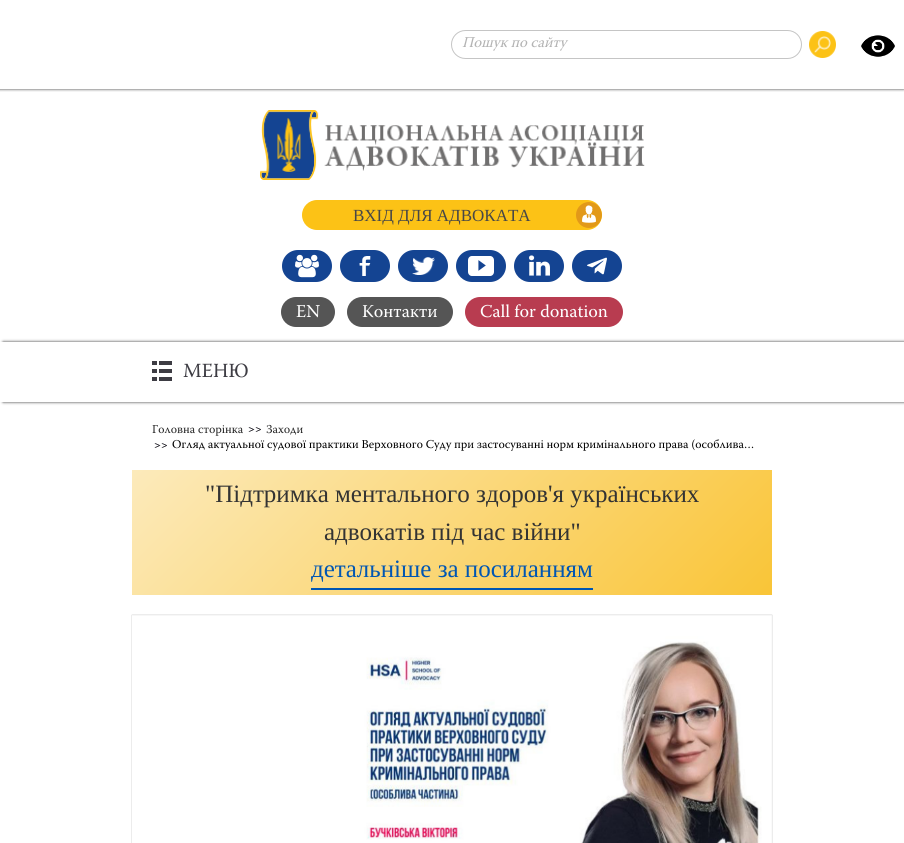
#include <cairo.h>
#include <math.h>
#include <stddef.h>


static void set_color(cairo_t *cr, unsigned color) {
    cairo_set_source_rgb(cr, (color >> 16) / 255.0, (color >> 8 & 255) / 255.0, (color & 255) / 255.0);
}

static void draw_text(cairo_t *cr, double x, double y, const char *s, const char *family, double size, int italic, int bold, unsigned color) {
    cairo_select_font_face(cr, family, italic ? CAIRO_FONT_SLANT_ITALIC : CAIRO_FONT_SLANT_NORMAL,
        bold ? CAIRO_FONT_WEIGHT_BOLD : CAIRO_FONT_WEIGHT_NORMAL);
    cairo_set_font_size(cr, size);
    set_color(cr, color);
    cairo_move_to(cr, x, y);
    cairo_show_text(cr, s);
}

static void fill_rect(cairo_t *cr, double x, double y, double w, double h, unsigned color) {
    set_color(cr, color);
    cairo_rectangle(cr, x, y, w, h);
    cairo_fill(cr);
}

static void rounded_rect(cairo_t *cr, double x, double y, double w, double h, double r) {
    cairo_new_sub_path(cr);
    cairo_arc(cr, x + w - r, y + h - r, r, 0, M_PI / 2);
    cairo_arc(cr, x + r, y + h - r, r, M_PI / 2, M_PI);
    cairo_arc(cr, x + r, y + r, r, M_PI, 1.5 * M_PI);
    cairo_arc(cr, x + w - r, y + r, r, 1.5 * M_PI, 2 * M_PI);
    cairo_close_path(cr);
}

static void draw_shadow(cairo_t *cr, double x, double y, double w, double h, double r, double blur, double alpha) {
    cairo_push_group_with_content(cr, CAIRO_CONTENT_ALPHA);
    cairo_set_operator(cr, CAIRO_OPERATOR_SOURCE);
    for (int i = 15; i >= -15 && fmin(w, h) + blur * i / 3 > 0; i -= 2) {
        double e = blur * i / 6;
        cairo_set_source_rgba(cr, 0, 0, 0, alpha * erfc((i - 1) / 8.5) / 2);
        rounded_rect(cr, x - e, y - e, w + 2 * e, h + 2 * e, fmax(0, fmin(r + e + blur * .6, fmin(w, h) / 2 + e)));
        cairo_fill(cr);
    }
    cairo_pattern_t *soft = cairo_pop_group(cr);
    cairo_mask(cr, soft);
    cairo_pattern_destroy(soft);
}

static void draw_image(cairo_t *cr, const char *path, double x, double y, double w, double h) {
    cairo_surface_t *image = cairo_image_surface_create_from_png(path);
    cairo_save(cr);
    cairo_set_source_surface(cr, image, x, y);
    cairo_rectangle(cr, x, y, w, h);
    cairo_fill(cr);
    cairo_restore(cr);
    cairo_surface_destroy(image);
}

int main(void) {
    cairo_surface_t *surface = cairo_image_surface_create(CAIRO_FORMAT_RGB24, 904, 843);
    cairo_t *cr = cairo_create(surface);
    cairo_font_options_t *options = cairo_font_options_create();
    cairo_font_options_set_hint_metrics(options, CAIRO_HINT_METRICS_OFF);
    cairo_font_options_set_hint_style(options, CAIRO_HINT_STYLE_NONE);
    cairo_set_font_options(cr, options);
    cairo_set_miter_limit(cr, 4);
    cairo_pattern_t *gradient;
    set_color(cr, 0xFFFFFF);
    cairo_paint(cr);
    cairo_save(cr);
    cairo_rectangle(cr, 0, 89, 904, 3);
    cairo_clip(cr);
    set_color(cr, 0x000000);
    draw_shadow(cr, -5, 0, 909, 89, 0, 1.5, 0.8);
    cairo_restore(cr);
    rounded_rect(cr, 451.5, 30.5, 350, 28, 14);
    set_color(cr, 0xC5C5C5);
    cairo_set_line_width(cr, 1);
    cairo_stroke(cr);
    draw_image(cr, "assets/img1.png", 462, 37, 107, 14);
    draw_image(cr, "assets/img2.png", 809, 31, 27, 27);
    draw_image(cr, "assets/img3.png", 861, 35, 34, 22);
    draw_image(cr, "assets/img4.png", 260, 110, 385, 70);
    set_color(cr, 0xFCC216);
    rounded_rect(cr, 302, 200, 300, 30, 15);
    cairo_fill(cr);
    draw_image(cr, "assets/img5.png", 576, 202, 26, 26);
    draw_text(cr, 353, 221, "ВХІД ДЛЯ АДВОКАТА", "Liberation Serif", 17, 0, 0, 0x474747);
    set_color(cr, 0x144492);
    rounded_rect(cr, 282, 250, 50, 32, 16);
    cairo_fill(cr);
    draw_image(cr, "assets/img6.png", 295, 254, 24, 24);
    rounded_rect(cr, 340, 250, 50, 32, 16);
    cairo_fill(cr);
    draw_image(cr, "assets/img7.png", 359, 256, 12, 20);
    rounded_rect(cr, 398, 250, 50, 32, 16);
    cairo_fill(cr);
    draw_image(cr, "assets/img8.png", 412, 257, 23, 18);
    rounded_rect(cr, 456, 250, 50, 32, 16);
    cairo_fill(cr);
    draw_image(cr, "assets/img9.png", 468, 256, 26, 20);
    rounded_rect(cr, 514, 250, 50, 32, 16);
    cairo_fill(cr);
    draw_image(cr, "assets/img10.png", 529, 255, 21, 21);
    rounded_rect(cr, 572, 250, 50, 32, 16);
    cairo_fill(cr);
    draw_image(cr, "assets/img11.png", 587, 257, 20, 18);
    set_color(cr, 0x555555);
    rounded_rect(cr, 281, 297, 54, 30, 15);
    cairo_fill(cr);
    draw_image(cr, "assets/img12.png", 296, 305, 24, 13);
    rounded_rect(cr, 347, 297, 106, 30, 15);
    cairo_fill(cr);
    draw_image(cr, "assets/img13.png", 362, 305, 75, 13);
    set_color(cr, 0xB83C50);
    rounded_rect(cr, 465, 297, 158, 30, 15);
    cairo_fill(cr);
    draw_image(cr, "assets/img14.png", 480, 304, 128, 14);
    cairo_save(cr);
    cairo_set_fill_rule(cr, CAIRO_FILL_RULE_EVEN_ODD);
    cairo_new_path(cr);
    cairo_move_to(cr, 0, 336);
    cairo_line_to(cr, 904, 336);
    cairo_line_to(cr, 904, 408);
    cairo_line_to(cr, 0, 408);
    cairo_close_path(cr);
    cairo_move_to(cr, 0, 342);
    cairo_line_to(cr, 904, 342);
    cairo_line_to(cr, 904, 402);
    cairo_line_to(cr, 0, 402);
    cairo_close_path(cr);
    cairo_clip(cr);
    set_color(cr, 0x000000);
    draw_shadow(cr, 3, 342, 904, 60, 0, 1.5, 0.8);
    cairo_restore(cr);
    draw_image(cr, "assets/img15.png", 152, 361, 20, 20);
    draw_image(cr, "assets/img16.png", 183, 363, 65, 15);
    draw_image(cr, "assets/img17.png", 152, 425, 91, 11);
    draw_image(cr, "assets/img18.png", 248, 427, 13, 5);
    draw_image(cr, "assets/img19.png", 266, 424, 37, 11);
    draw_image(cr, "assets/img18.png", 154, 443, 13, 5);
    draw_image(cr, "assets/img20.png", 172, 439, 582, 12);
    gradient = cairo_pattern_create_linear(341, 261, 883, 804);
    cairo_pattern_add_color_stop_rgba(gradient, 0, 0.988, 0.918, 0.733, 1);
    cairo_pattern_add_color_stop_rgba(gradient, 1, 0.973, 0.71, 0, 1);
    cairo_set_source(cr, gradient);
    cairo_pattern_destroy(gradient);
    cairo_rectangle(cr, 132, 470, 640, 125);
    cairo_fill(cr);
    draw_text(cr, 205, 502, "\"Підтримка ментального здоров'я українських", "Liberation Serif", 25, 0, 0, 0x333333);
    draw_text(cr, 324, 540, "адвокатів під час війни\"", "Liberation Serif", 25, 0, 0, 0x333333);
    fill_rect(cr, 311, 588, 282, 2, 0x0056B3);
    draw_text(cr, 311, 577, "детальніше за посиланням", "Liberation Serif", 25, 0, 0, 0x0056B3);
    set_color(cr, 0x000000);
    draw_shadow(cr, 132, 615, 640, 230, 0, 0.5, 0.3);
    draw_image(cr, "assets/img21.png", 132, 615, 640, 228);
    cairo_surface_write_to_png(surface, "output.png");
    cairo_font_options_destroy(options);
    cairo_destroy(cr);
    cairo_surface_destroy(surface);
    return 0;
}
